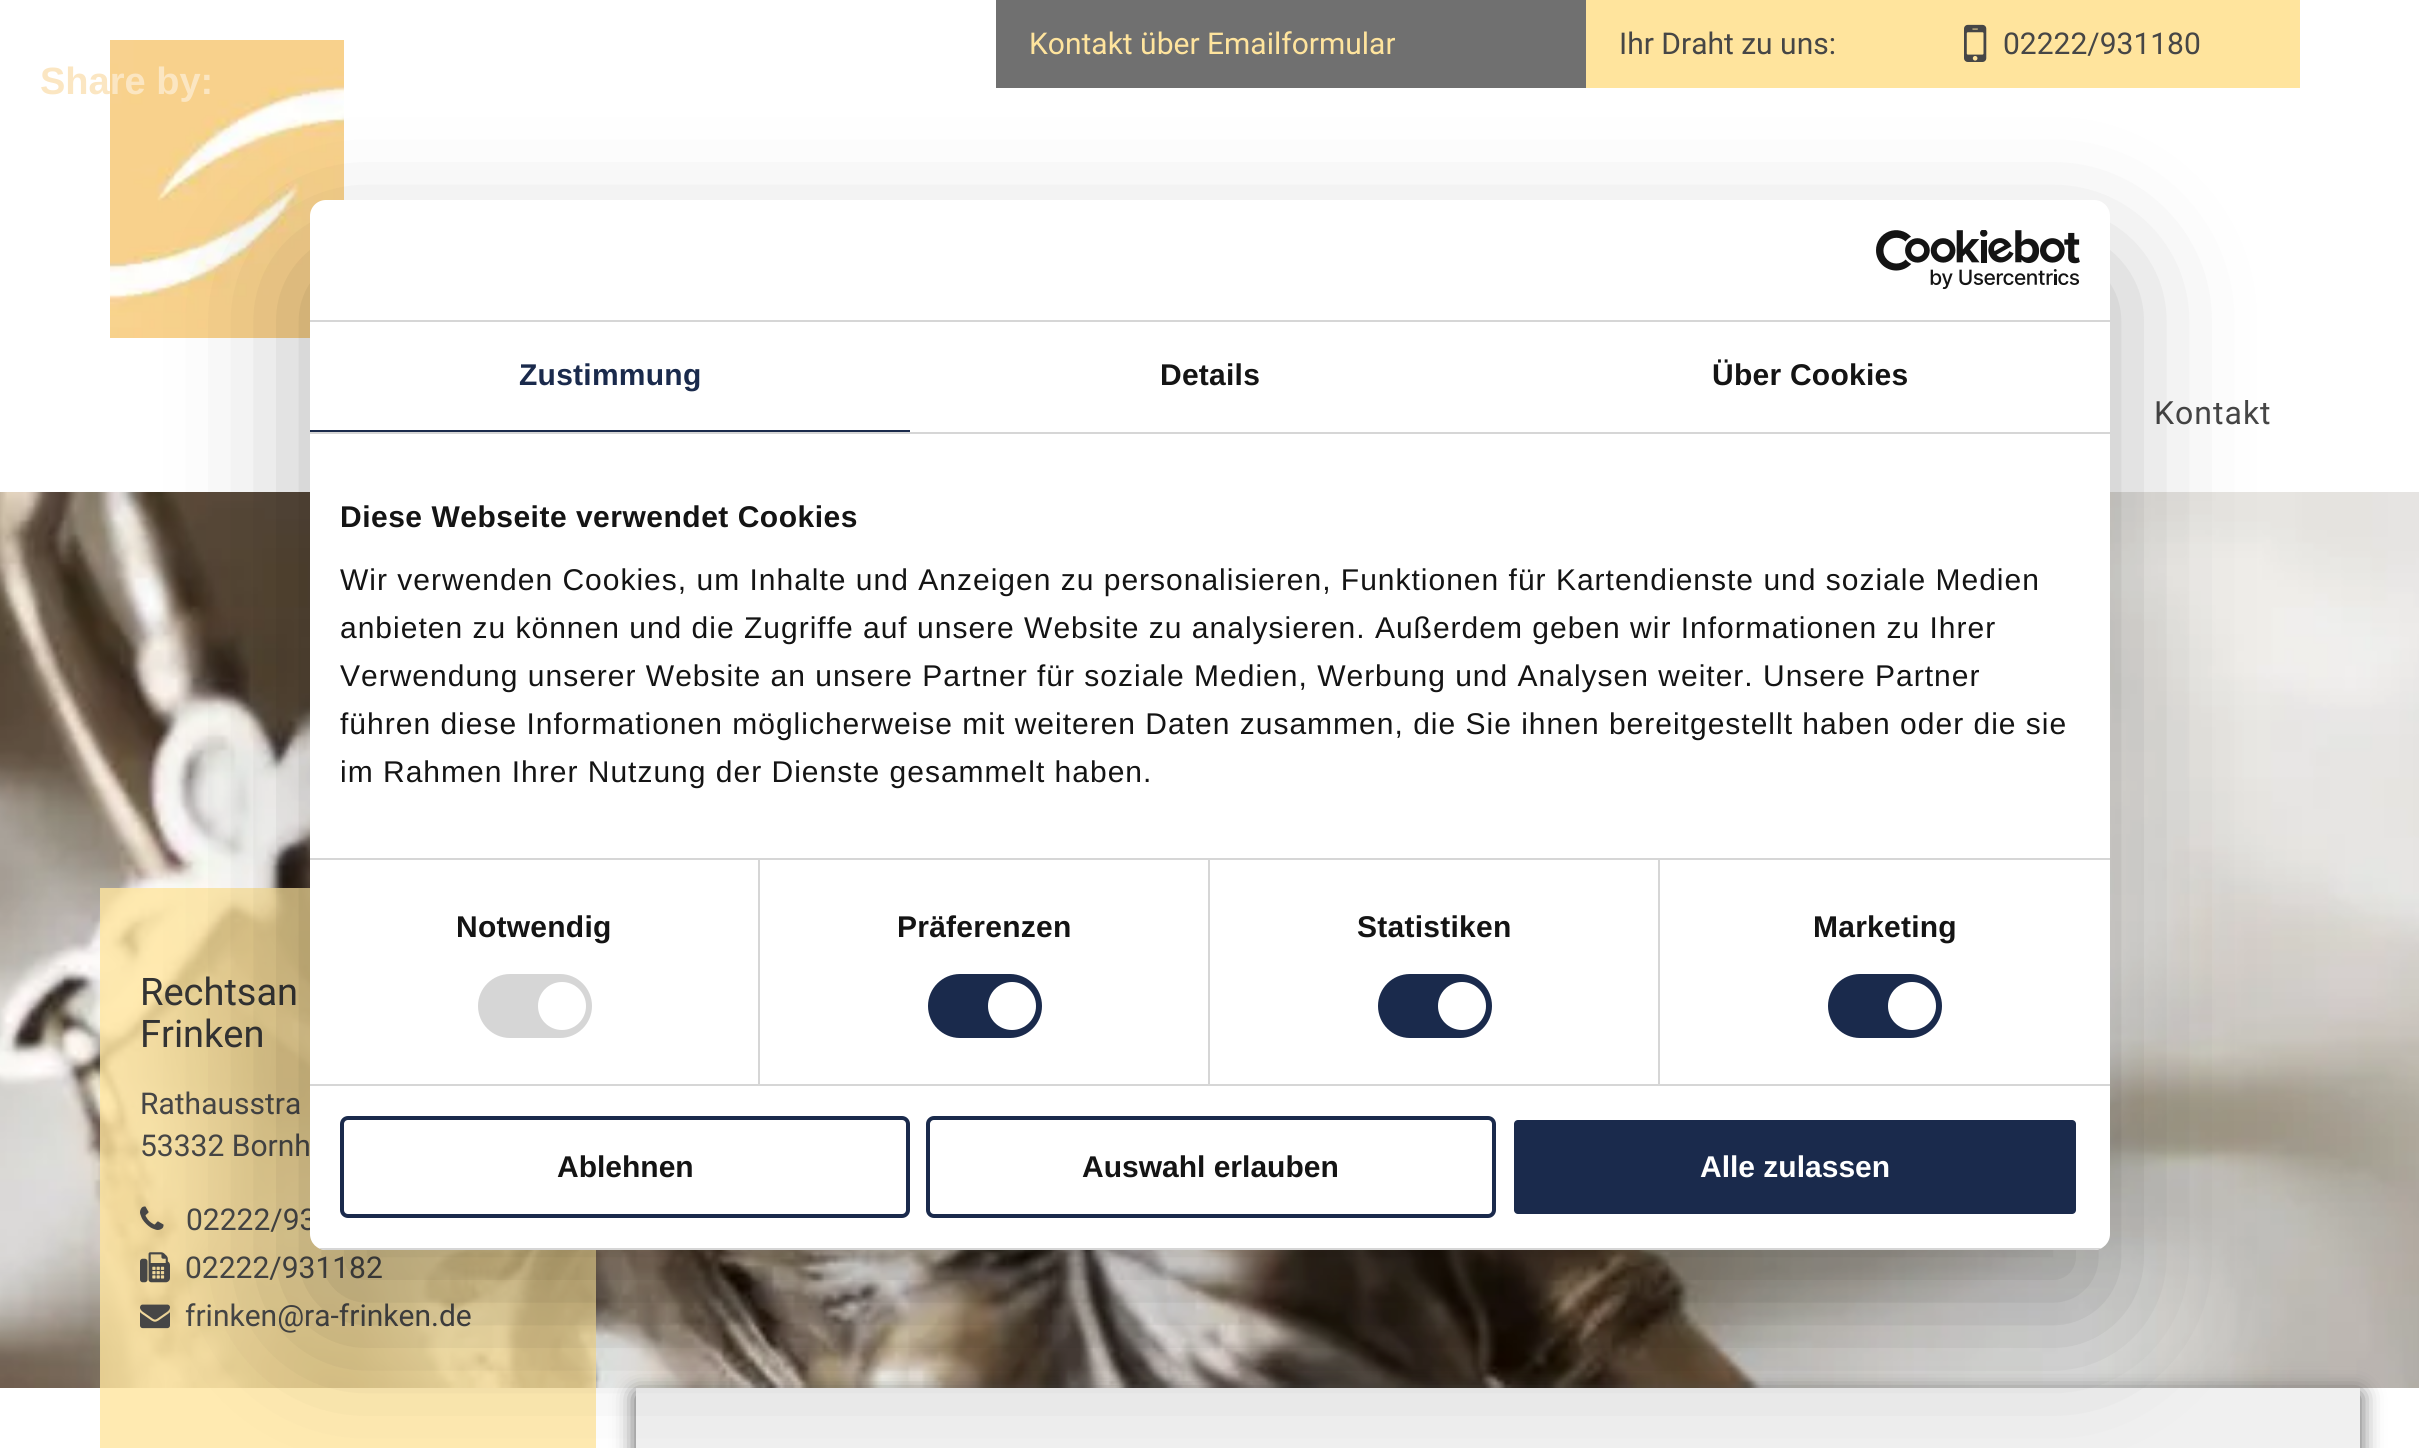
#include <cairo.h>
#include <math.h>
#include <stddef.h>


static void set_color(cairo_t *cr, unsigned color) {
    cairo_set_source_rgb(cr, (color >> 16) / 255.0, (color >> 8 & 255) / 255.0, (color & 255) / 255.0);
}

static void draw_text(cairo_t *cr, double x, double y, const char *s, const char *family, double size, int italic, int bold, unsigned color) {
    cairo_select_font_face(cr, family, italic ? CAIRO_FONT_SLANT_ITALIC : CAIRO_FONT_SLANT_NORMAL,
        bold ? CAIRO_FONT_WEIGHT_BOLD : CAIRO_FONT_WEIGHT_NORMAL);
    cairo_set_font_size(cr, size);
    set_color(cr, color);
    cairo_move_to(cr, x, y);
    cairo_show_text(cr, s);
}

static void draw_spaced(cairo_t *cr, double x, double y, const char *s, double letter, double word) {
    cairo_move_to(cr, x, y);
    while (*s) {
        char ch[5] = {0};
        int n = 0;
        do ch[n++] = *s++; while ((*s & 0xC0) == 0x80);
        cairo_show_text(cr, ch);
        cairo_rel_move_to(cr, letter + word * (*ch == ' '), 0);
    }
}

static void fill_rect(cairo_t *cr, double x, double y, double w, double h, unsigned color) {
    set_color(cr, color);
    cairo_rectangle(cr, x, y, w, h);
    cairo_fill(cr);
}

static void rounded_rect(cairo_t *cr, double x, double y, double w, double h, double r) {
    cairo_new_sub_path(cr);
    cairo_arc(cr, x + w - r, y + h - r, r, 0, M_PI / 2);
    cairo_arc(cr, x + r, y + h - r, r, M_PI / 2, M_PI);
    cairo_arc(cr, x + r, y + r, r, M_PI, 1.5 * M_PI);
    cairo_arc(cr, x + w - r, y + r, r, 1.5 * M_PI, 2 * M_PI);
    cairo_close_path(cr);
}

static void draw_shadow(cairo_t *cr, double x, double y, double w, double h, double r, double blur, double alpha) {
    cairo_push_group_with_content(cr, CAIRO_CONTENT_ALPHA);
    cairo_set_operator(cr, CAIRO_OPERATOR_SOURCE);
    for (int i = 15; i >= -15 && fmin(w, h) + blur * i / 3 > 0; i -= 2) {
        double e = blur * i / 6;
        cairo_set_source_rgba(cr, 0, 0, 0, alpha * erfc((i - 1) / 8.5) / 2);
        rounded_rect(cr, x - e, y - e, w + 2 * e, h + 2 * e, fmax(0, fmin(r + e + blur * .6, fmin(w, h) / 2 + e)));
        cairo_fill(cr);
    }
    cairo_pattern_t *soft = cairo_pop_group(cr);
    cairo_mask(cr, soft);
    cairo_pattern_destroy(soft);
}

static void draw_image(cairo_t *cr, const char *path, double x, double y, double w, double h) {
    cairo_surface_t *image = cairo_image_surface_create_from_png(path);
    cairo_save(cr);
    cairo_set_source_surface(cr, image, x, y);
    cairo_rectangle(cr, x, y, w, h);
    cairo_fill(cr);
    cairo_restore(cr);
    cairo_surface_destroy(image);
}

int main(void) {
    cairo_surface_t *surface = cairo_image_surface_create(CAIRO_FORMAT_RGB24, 2419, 1448);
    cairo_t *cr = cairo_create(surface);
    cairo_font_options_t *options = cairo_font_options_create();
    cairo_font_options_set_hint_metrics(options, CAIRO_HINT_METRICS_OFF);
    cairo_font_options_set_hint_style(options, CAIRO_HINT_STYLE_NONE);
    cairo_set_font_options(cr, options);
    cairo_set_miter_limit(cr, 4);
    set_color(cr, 0xFFFFFF);
    cairo_paint(cr);
    draw_image(cr, "assets/img1.png", 110, 40, 234, 298);
    draw_text(cr, 40, 94, "Share by:", "Liberation Sans", 38, 0, 1, 0xFBE6C2);
    fill_rect(cr, 996, 0, 590, 88, 0x707070);
    draw_text(cr, 1029, 54, "Kontakt über Emailformular", "Roboto", 30, 0, 0, 0xFFE49D);
    fill_rect(cr, 1586, 0, 714, 88, 0xFFE49D);
    draw_text(cr, 1619, 54, "Ihr Draht zu uns:", "Roboto", 30, 0, 0, 0x464646);
    draw_image(cr, "assets/img2.png", 1964, 24, 23, 38);
    draw_text(cr, 2003, 54, "02222/931180", "Roboto", 30, 0, 0, 0x464646);
    cairo_set_font_size(cr, 32);
    draw_spaced(cr, 2154, 424, "Kontakt", 1, 0);
    draw_image(cr, "assets/img3.png", 0, 492, 2419, 896);
    cairo_set_source_rgba(cr, 1, 0.894, 0.616, 0.8);
    cairo_rectangle(cr, 100, 888, 496, 560);
    cairo_fill(cr);
    draw_text(cr, 140, 1005, "Rechtsan", "Roboto", 38, 0, 0, 0x333333);
    draw_text(cr, 140, 1047, "Frinken", "Roboto", 38, 0, 0, 0x333333);
    draw_text(cr, 140, 1114, "Rathausstra", "Roboto", 30, 0, 0, 0x464646);
    draw_text(cr, 140, 1156, "53332 Bornh", "Roboto", 30, 0, 0, 0x464646);
    draw_image(cr, "assets/img4.png", 140, 1206, 24, 24);
    draw_text(cr, 186, 1230, "02222/93", "Roboto", 30, 0, 0, 0x464646);
    draw_image(cr, "assets/img5.png", 140, 1252, 30, 31);
    draw_text(cr, 185, 1278, "02222/931182", "Roboto", 30, 0, 0, 0x464646);
    draw_image(cr, "assets/img6.png", 140, 1304, 30, 25);
    draw_text(cr, 185, 1326, "frinken@ra-frinken.de", "Roboto", 30, 0, 0, 0x464646);
    set_color(cr, 0x555555);
    draw_shadow(cr, 636, 1394, 1724, 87, 0, 11, 1);
    fill_rect(cr, 636, 1388, 1724, 60, 0xF0F0F0);
    set_color(cr, 0x000000);
    draw_shadow(cr, 310, 264, 1800, 1050, 16, 68, 0.3);
    set_color(cr, 0xFFFFFF);
    rounded_rect(cr, 310, 200, 1800, 1050, 16);
    cairo_fill(cr);
    fill_rect(cr, 310, 320, 1800, 2, 0xD6D6D6);
    draw_image(cr, "assets/img7.png", 1876, 230, 204, 60);
    fill_rect(cr, 310, 432, 1800, 2, 0xD6D6D6);
    fill_rect(cr, 310, 430, 600, 2, 0x1A2A4C);
    cairo_select_font_face(cr, "Liberation Sans", CAIRO_FONT_SLANT_NORMAL, CAIRO_FONT_WEIGHT_BOLD);
    draw_spaced(cr, 519, 385, "Zustimmung", 0.25, 0);
    set_color(cr, 0x141414);
    draw_spaced(cr, 1160, 385, "Details", 0.25, 0);
    draw_spaced(cr, 1712, 385, "Über Cookies", 0.25, 0);
    fill_rect(cr, 310, 858, 1800, 2, 0xD6D6D6);
    set_color(cr, 0x141414);
    draw_spaced(cr, 340, 527, "Diese Webseite verwendet Cookies", 0.5, 0);
    cairo_select_font_face(cr, "Liberation Sans", CAIRO_FONT_SLANT_NORMAL, CAIRO_FONT_WEIGHT_NORMAL);
    draw_spaced(cr, 340, 590, "Wir verwenden Cookies, um Inhalte und Anzeigen zu personalisieren, Funktionen für Kartendienste und soziale Medien", 1, 0);
    draw_spaced(cr, 340, 638, "anbieten zu können und die Zugriffe auf unsere Website zu analysieren. Außerdem geben wir Informationen zu Ihrer", 1, 0);
    draw_spaced(cr, 340, 686, "Verwendung unserer Website an unsere Partner für soziale Medien, Werbung und Analysen weiter. Unsere Partner", 1, 0);
    draw_spaced(cr, 340, 734, "führen diese Informationen möglicherweise mit weiteren Daten zusammen, die Sie ihnen bereitgestellt haben oder die sie", 1, 0);
    draw_spaced(cr, 340, 782, "im Rahmen Ihrer Nutzung der Dienste gesammelt haben.", 1, 0);
    fill_rect(cr, 310, 1084, 1800, 2, 0xD6D6D6);
    fill_rect(cr, 758, 860, 2, 224, 0xD6D6D6);
    cairo_select_font_face(cr, "Liberation Sans", CAIRO_FONT_SLANT_NORMAL, CAIRO_FONT_WEIGHT_BOLD);
    set_color(cr, 0x141414);
    draw_spaced(cr, 456, 937, "Notwendig", 0.25, 0);
    set_color(cr, 0xD6D6D6);
    rounded_rect(cr, 478, 974, 114, 64, 32);
    cairo_fill(cr);
    set_color(cr, 0xFFFFFF);
    cairo_arc(cr, 562, 1006, 24, 0, 2 * M_PI);
    cairo_fill(cr);
    fill_rect(cr, 1208, 860, 2, 224, 0xD6D6D6);
    set_color(cr, 0x141414);
    draw_spaced(cr, 897, 937, "Präferenzen", 0.25, 0);
    set_color(cr, 0x1A2A4C);
    rounded_rect(cr, 928, 974, 114, 64, 32);
    cairo_fill(cr);
    set_color(cr, 0xFFFFFF);
    cairo_arc(cr, 1012, 1006, 24, 0, 2 * M_PI);
    cairo_fill(cr);
    fill_rect(cr, 1658, 860, 2, 224, 0xD6D6D6);
    set_color(cr, 0x141414);
    draw_spaced(cr, 1357, 937, "Statistiken", 0.25, 0);
    set_color(cr, 0x1A2A4C);
    rounded_rect(cr, 1378, 974, 114, 64, 32);
    cairo_fill(cr);
    set_color(cr, 0xFFFFFF);
    cairo_arc(cr, 1462, 1006, 24, 0, 2 * M_PI);
    cairo_fill(cr);
    set_color(cr, 0x141414);
    draw_spaced(cr, 1813, 937, "Marketing", 0.25, 0);
    set_color(cr, 0x1A2A4C);
    rounded_rect(cr, 1828, 974, 114, 64, 32);
    cairo_fill(cr);
    set_color(cr, 0xFFFFFF);
    cairo_arc(cr, 1912, 1006, 24, 0, 2 * M_PI);
    cairo_fill(cr);
    cairo_save(cr);
    rounded_rect(cr, 310, 200, 1800, 1050, 16);
    cairo_clip(cr);
    fill_rect(cr, 310, 1248, 1800, 2, 0xD6D6D6);
    cairo_restore(cr);
    rounded_rect(cr, 342, 1118, 566, 98, 6);
    set_color(cr, 0x1A2A4C);
    cairo_set_line_width(cr, 4);
    cairo_stroke(cr);
    draw_text(cr, 557, 1177, "Ablehnen", "Liberation Sans", 30, 0, 1, 0x141414);
    rounded_rect(cr, 928, 1118, 566, 98, 6);
    set_color(cr, 0x1A2A4C);
    cairo_stroke(cr);
    draw_text(cr, 1082, 1177, "Auswahl erlauben", "Liberation Sans", 30, 0, 1, 0x141414);
    set_color(cr, 0x1A2A4C);
    rounded_rect(cr, 1512, 1118, 566, 98, 6);
    cairo_fill_preserve(cr);
    set_color(cr, 0xFFFFFF);
    cairo_stroke(cr);
    draw_text(cr, 1700, 1177, "Alle zulassen", "Liberation Sans", 30, 0, 1, 0xFFFFFF);
    cairo_surface_write_to_png(surface, "output.png");
    cairo_font_options_destroy(options);
    cairo_destroy(cr);
    cairo_surface_destroy(surface);
    return 0;
}
